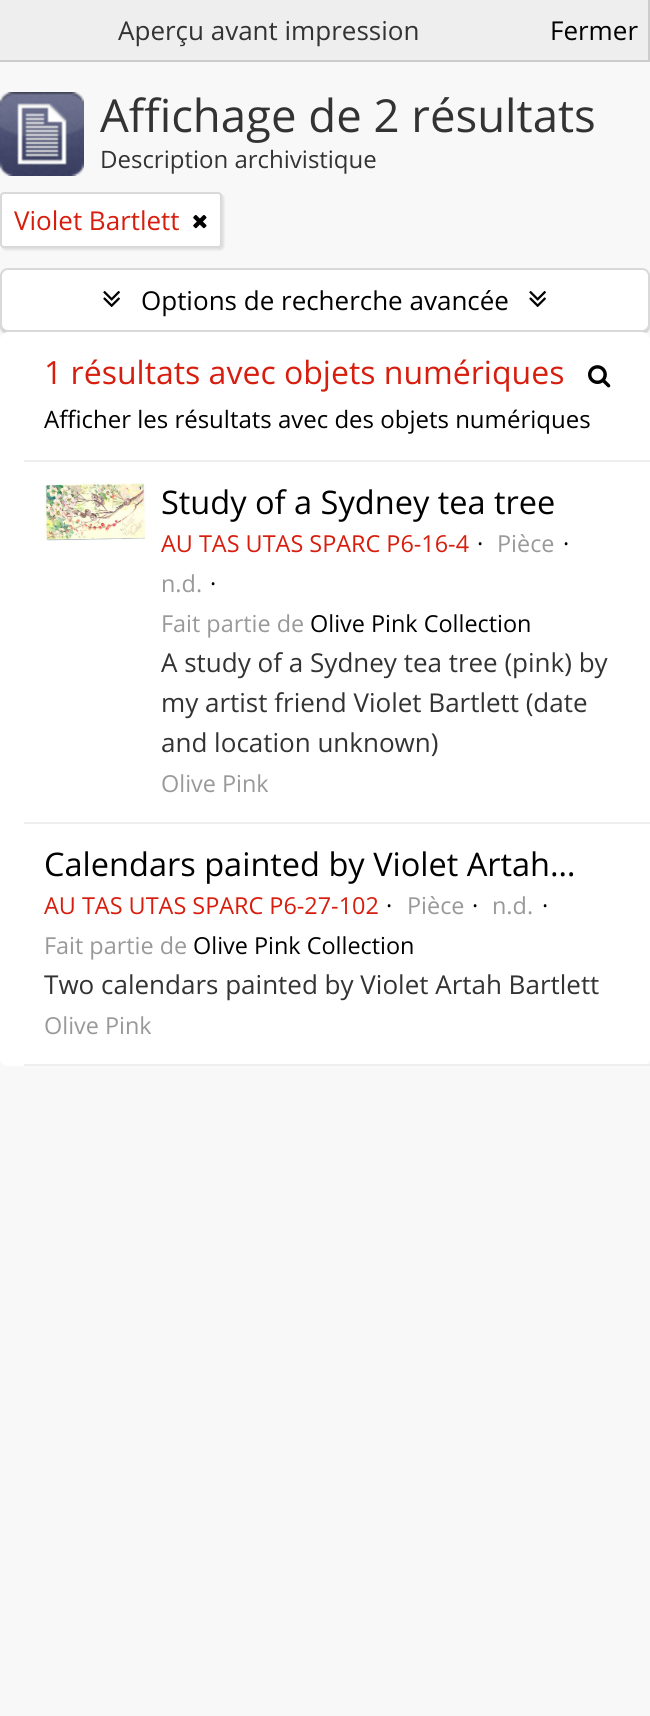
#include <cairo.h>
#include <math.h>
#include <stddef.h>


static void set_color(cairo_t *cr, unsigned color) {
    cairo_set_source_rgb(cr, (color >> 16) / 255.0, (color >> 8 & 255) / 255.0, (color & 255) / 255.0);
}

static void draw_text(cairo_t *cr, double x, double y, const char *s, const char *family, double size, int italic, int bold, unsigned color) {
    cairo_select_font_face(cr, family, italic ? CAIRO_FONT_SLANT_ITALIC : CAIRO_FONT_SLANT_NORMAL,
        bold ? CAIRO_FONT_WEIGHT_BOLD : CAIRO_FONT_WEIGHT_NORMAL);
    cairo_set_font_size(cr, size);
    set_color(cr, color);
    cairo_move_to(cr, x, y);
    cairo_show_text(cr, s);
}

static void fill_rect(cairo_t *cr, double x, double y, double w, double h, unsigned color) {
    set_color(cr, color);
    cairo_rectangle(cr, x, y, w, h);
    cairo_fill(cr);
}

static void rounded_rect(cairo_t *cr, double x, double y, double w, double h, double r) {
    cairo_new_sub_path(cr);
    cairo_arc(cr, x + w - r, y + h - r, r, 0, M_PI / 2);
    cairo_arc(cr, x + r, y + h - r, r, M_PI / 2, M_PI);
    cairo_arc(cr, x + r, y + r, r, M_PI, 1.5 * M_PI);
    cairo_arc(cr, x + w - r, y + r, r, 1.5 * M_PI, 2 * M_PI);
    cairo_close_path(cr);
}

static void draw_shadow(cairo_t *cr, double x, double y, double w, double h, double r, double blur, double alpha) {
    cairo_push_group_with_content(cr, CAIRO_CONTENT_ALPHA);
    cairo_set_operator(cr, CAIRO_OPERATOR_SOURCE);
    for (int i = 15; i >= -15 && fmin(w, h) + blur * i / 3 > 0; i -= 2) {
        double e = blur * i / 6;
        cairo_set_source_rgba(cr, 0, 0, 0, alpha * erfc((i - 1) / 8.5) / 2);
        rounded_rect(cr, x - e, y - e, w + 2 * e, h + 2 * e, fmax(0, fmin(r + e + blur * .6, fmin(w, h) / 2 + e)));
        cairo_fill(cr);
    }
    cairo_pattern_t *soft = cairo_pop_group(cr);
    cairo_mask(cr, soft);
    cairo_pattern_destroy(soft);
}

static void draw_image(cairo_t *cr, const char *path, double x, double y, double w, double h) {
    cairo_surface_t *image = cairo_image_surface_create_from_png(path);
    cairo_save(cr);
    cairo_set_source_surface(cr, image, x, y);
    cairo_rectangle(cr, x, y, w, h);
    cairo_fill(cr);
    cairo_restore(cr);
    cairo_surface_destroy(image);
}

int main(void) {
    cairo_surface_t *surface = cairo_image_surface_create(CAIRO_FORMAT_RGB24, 650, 1716);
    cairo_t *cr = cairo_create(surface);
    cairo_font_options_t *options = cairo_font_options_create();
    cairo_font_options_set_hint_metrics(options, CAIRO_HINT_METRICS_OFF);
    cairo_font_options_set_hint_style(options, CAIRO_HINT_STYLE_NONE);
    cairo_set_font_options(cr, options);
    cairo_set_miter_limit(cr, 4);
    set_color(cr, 0xF8F8F8);
    cairo_paint(cr);
    fill_rect(cr, 0, 0, 648, 60, 0xEEEEEE);
    fill_rect(cr, 648, 0, 2, 62, 0xCCCCCC);
    fill_rect(cr, 0, 60, 650, 2, 0xCCCCCC);
    draw_text(cr, 118, 40, "Aperçu avant impression", "Open Sans", 26, 0, 0, 0x333333);
    draw_text(cr, 550, 40, "Fermer", "Open Sans", 26, 0, 0, 0x000000);
    draw_image(cr, "assets/img1.png", 0, 92, 84, 84);
    draw_text(cr, 100, 132, "Affichage de 2 résultats", "Open Sans", 45.5, 0, 0, 0x333333);
    draw_text(cr, 100, 168, "Description archivistique", "Open Sans", 24, 0, 0, 0x333333);
    set_color(cr, 0x000000);
    draw_shadow(cr, 2, 194, 222, 56, 4, 1, 0.1);
    set_color(cr, 0xFFFFFF);
    rounded_rect(cr, 1, 193, 220, 54, 3);
    cairo_fill_preserve(cr);
    set_color(cr, 0xD9D9D9);
    cairo_stroke(cr);
    draw_text(cr, 14, 230, "Violet Bartlett", "Open Sans", 26, 0, 0, 0xD71D0D);
    draw_image(cr, "assets/img2.png", 193, 215, 14, 14);
    set_color(cr, 0x000000);
    draw_shadow(cr, 0, 270, 650, 64, 8, 1, 0.2);
    set_color(cr, 0xFFFFFF);
    rounded_rect(cr, 1, 269, 648, 62, 7);
    cairo_fill_preserve(cr);
    set_color(cr, 0xD9D9D9);
    cairo_stroke(cr);
    draw_image(cr, "assets/img3.png", 103, 291, 17, 17);
    draw_text(cr, 141, 310, "Options de recherche avancée", "Open Sans", 26, 0, 0, 0x000000);
    draw_image(cr, "assets/img3.png", 529, 291, 17, 17);
    set_color(cr, 0xFFFFFF);
    rounded_rect(cr, 0, 332, 650, 734, 8);
    cairo_fill(cr);
    fill_rect(cr, 24, 460, 626, 2, 0xEEEEEE);
    draw_text(cr, 44, 384, "1 résultats avec objets numériques", "Open Sans", 32, 0, 0, 0xD71D0D);
    draw_image(cr, "assets/img4.png", 588, 365, 23, 23);
    draw_text(cr, 44, 428, "Afficher les résultats avec des objets numériques", "Open Sans", 24, 0, 0, 0x000000);
    fill_rect(cr, 24, 822, 626, 2, 0xEEEEEE);
    draw_image(cr, "assets/img5.png", 44, 482, 102, 59);
    draw_text(cr, 161, 514, "Study of a Sydney tea tree", "Open Sans", 32.5, 0, 0, 0x000000);
    draw_text(cr, 161, 552, "AU TAS UTAS SPARC P6-16-4", "Open Sans", 23.4, 0, 0, 0xD71D0D);
    draw_text(cr, 477, 552, "·", "Open Sans", 23.4, 0, 0, 0x000000);
    draw_text(cr, 497, 552, "Pièce", "Open Sans", 23.4, 0, 0, 0x999999);
    draw_text(cr, 563, 552, "·", "Open Sans", 23.4, 0, 0, 0x000000);
    draw_text(cr, 161, 592, "n.d.", "Open Sans", 23.4, 0, 0, 0x999999);
    draw_text(cr, 210, 592, "·", "Open Sans", 23.4, 0, 0, 0x000000);
    draw_text(cr, 161, 632, "Fait partie de", "Open Sans", 23.4, 0, 0, 0x999999);
    draw_text(cr, 310, 632, "Olive Pink Collection", "Open Sans", 23.4, 0, 0, 0x000000);
    draw_text(cr, 161, 672, "A study of a Sydney tea tree (pink) by", "Open Sans", 26, 0, 0, 0x333333);
    draw_text(cr, 161, 712, "my artist friend Violet Bartlett (date", "Open Sans", 26, 0, 0, 0x333333);
    draw_text(cr, 161, 752, "and location unknown)", "Open Sans", 26, 0, 0, 0x333333);
    draw_text(cr, 161, 792, "Olive Pink", "Open Sans", 23.4, 0, 0, 0x999999);
    fill_rect(cr, 24, 1064, 626, 2, 0xEEEEEE);
    draw_text(cr, 44, 876, "Calendars painted by Violet Artah…", "Open Sans", 32.5, 0, 0, 0x000000);
    draw_text(cr, 44, 914, "AU TAS UTAS SPARC P6-27-102", "Open Sans", 23.4, 0, 0, 0xD71D0D);
    draw_text(cr, 386, 914, "·", "Open Sans", 23.4, 0, 0, 0x000000);
    draw_text(cr, 407, 914, "Pièce", "Open Sans", 23.4, 0, 0, 0x999999);
    draw_text(cr, 472, 914, "·", "Open Sans", 23.4, 0, 0, 0x000000);
    draw_text(cr, 492, 914, "n.d.", "Open Sans", 23.4, 0, 0, 0x999999);
    draw_text(cr, 542, 914, "·", "Open Sans", 23.4, 0, 0, 0x000000);
    draw_text(cr, 44, 954, "Fait partie de", "Open Sans", 23.4, 0, 0, 0x999999);
    draw_text(cr, 193, 954, "Olive Pink Collection", "Open Sans", 23.4, 0, 0, 0x000000);
    draw_text(cr, 44, 994, "Two calendars painted by Violet Artah Bartlett", "Open Sans", 26, 0, 0, 0x333333);
    draw_text(cr, 44, 1034, "Olive Pink", "Open Sans", 23.4, 0, 0, 0x999999);
    cairo_surface_write_to_png(surface, "output.png");
    cairo_font_options_destroy(options);
    cairo_destroy(cr);
    cairo_surface_destroy(surface);
    return 0;
}
